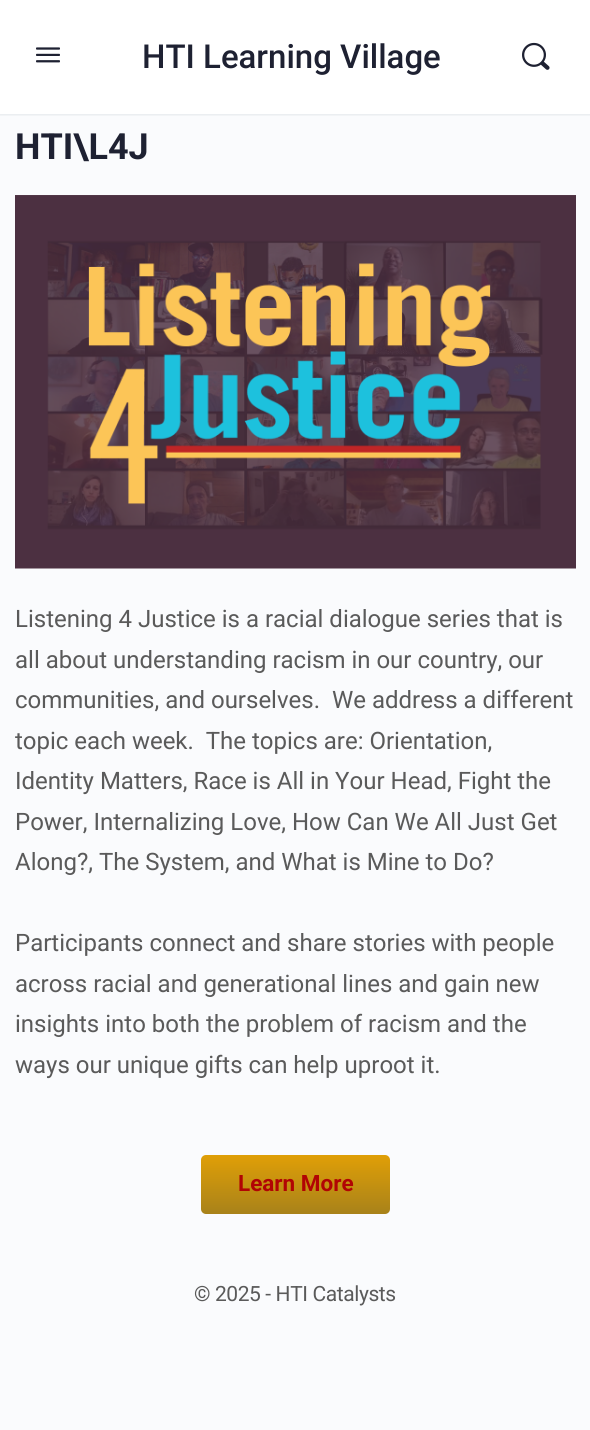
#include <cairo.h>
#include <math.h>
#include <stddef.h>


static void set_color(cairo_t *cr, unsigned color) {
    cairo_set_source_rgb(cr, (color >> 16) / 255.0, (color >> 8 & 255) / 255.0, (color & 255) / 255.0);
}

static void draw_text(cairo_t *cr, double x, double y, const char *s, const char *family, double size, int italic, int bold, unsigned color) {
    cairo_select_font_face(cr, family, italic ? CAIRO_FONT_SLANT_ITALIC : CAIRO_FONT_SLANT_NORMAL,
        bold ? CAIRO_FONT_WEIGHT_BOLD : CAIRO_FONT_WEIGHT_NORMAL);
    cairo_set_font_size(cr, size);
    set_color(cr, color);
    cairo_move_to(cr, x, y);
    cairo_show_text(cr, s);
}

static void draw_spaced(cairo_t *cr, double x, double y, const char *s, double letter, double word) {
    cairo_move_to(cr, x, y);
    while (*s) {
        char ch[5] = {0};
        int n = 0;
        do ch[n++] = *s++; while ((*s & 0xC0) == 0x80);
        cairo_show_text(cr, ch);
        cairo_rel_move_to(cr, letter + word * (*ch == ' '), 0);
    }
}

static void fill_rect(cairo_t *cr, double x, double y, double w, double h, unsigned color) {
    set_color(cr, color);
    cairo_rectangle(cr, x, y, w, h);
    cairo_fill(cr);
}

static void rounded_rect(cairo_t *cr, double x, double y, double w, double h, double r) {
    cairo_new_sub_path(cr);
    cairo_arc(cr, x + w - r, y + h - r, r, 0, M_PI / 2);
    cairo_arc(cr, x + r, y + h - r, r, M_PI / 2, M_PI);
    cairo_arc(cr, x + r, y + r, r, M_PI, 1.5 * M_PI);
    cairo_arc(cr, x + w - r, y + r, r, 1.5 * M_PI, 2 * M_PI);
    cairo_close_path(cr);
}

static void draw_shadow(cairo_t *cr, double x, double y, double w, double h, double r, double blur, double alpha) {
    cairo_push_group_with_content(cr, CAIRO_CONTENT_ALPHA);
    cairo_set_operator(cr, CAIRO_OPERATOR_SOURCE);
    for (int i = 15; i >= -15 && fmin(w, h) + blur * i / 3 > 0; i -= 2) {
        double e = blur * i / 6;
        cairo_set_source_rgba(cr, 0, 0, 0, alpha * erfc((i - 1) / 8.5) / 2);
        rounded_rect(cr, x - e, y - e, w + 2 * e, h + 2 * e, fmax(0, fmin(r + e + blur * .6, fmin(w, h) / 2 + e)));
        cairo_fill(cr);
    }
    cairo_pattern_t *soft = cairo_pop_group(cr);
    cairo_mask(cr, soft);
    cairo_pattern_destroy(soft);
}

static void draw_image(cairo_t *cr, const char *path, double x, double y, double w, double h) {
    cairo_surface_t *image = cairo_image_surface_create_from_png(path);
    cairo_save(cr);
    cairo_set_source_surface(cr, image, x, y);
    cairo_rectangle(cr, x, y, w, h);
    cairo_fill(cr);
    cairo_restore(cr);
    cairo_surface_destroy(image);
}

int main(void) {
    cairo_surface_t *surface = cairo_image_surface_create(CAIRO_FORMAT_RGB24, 590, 1430);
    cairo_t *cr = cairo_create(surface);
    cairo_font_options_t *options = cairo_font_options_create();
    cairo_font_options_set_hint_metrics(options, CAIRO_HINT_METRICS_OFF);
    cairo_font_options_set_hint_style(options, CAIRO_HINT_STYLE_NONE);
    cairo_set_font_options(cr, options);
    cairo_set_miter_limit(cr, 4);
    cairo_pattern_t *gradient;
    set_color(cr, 0xFAFBFD);
    cairo_paint(cr);
    set_color(cr, 0x41476C);
    draw_shadow(cr, 0, 0, 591, 114, 0, 1, 0.15);
    cairo_set_source_rgba(cr, 0.545, 0.553, 0.616, 0.05);
    cairo_rectangle(cr, 0, 114, 590, 2);
    cairo_fill(cr);
    fill_rect(cr, 0, 0, 590, 114, 0xFFFFFF);
    draw_image(cr, "assets/img1.png", 36, 47, 24, 16);
    draw_text(cr, 142, 68, "HTI Learning Village", "Roboto Medium", 33, 0, 0, 0x1E2132);
    draw_image(cr, "assets/img2.png", 522, 42, 28, 28);
    draw_text(cr, 15, 159, "HTI\\L4J", "Roboto", 36, 0, 1, 0x1E2132);
    draw_image(cr, "assets/img3.png", 15, 195, 561, 374);
    draw_text(cr, 15, 627, "Listening 4 Justice is a racial dialogue series that is", "Roboto", 24, 0, 0, 0x5A5A5A);
    draw_text(cr, 15, 668, "all about understanding racism in our country, our", "Roboto", 24, 0, 0, 0x5A5A5A);
    draw_text(cr, 15, 708, "communities, and ourselves.  We address a different", "Roboto", 24, 0, 0, 0x5A5A5A);
    draw_text(cr, 15, 749, "topic each week.  The topics are: Orientation,", "Roboto", 24, 0, 0, 0x5A5A5A);
    draw_text(cr, 15, 789, "Identity Matters, Race is All in Your Head, Fight the", "Roboto", 24, 0, 0, 0x5A5A5A);
    draw_text(cr, 15, 830, "Power, Internalizing Love, How Can We All Just Get", "Roboto", 24, 0, 0, 0x5A5A5A);
    draw_text(cr, 15, 870, "Along?, The System, and What is Mine to Do?", "Roboto", 24, 0, 0, 0x5A5A5A);
    draw_text(cr, 15, 951, "Participants connect and share stories with people", "Roboto", 24, 0, 0, 0x5A5A5A);
    draw_text(cr, 15, 992, "across racial and generational lines and gain new", "Roboto", 24, 0, 0, 0x5A5A5A);
    draw_text(cr, 15, 1032, "insights into both the problem of racism and the", "Roboto", 24, 0, 0, 0x5A5A5A);
    draw_text(cr, 15, 1073, "ways our unique gifts can help uproot it.", "Roboto", 24, 0, 0, 0x5A5A5A);
    gradient = cairo_pattern_create_linear(296, 1155, 296, 1214);
    cairo_pattern_add_color_stop_rgba(gradient, 0, 0.878, 0.624, 0.027, 1);
    cairo_pattern_add_color_stop_rgba(gradient, 1, 0.659, 0.51, 0.102, 1);
    cairo_set_source(cr, gradient);
    cairo_pattern_destroy(gradient);
    rounded_rect(cr, 201, 1155, 189, 59, 5);
    cairo_fill(cr);
    draw_text(cr, 238, 1191, "Learn More", "Roboto", 22.5, 0, 1, 0xB10404);
    cairo_select_font_face(cr, "Roboto", CAIRO_FONT_SLANT_NORMAL, CAIRO_FONT_WEIGHT_NORMAL);
    cairo_set_font_size(cr, 21);
    set_color(cr, 0x5A5A5A);
    draw_spaced(cr, 194, 1301, "© 2025 - HTI Catalysts", -0.4, 0);
    cairo_surface_write_to_png(surface, "output.png");
    cairo_font_options_destroy(options);
    cairo_destroy(cr);
    cairo_surface_destroy(surface);
    return 0;
}
